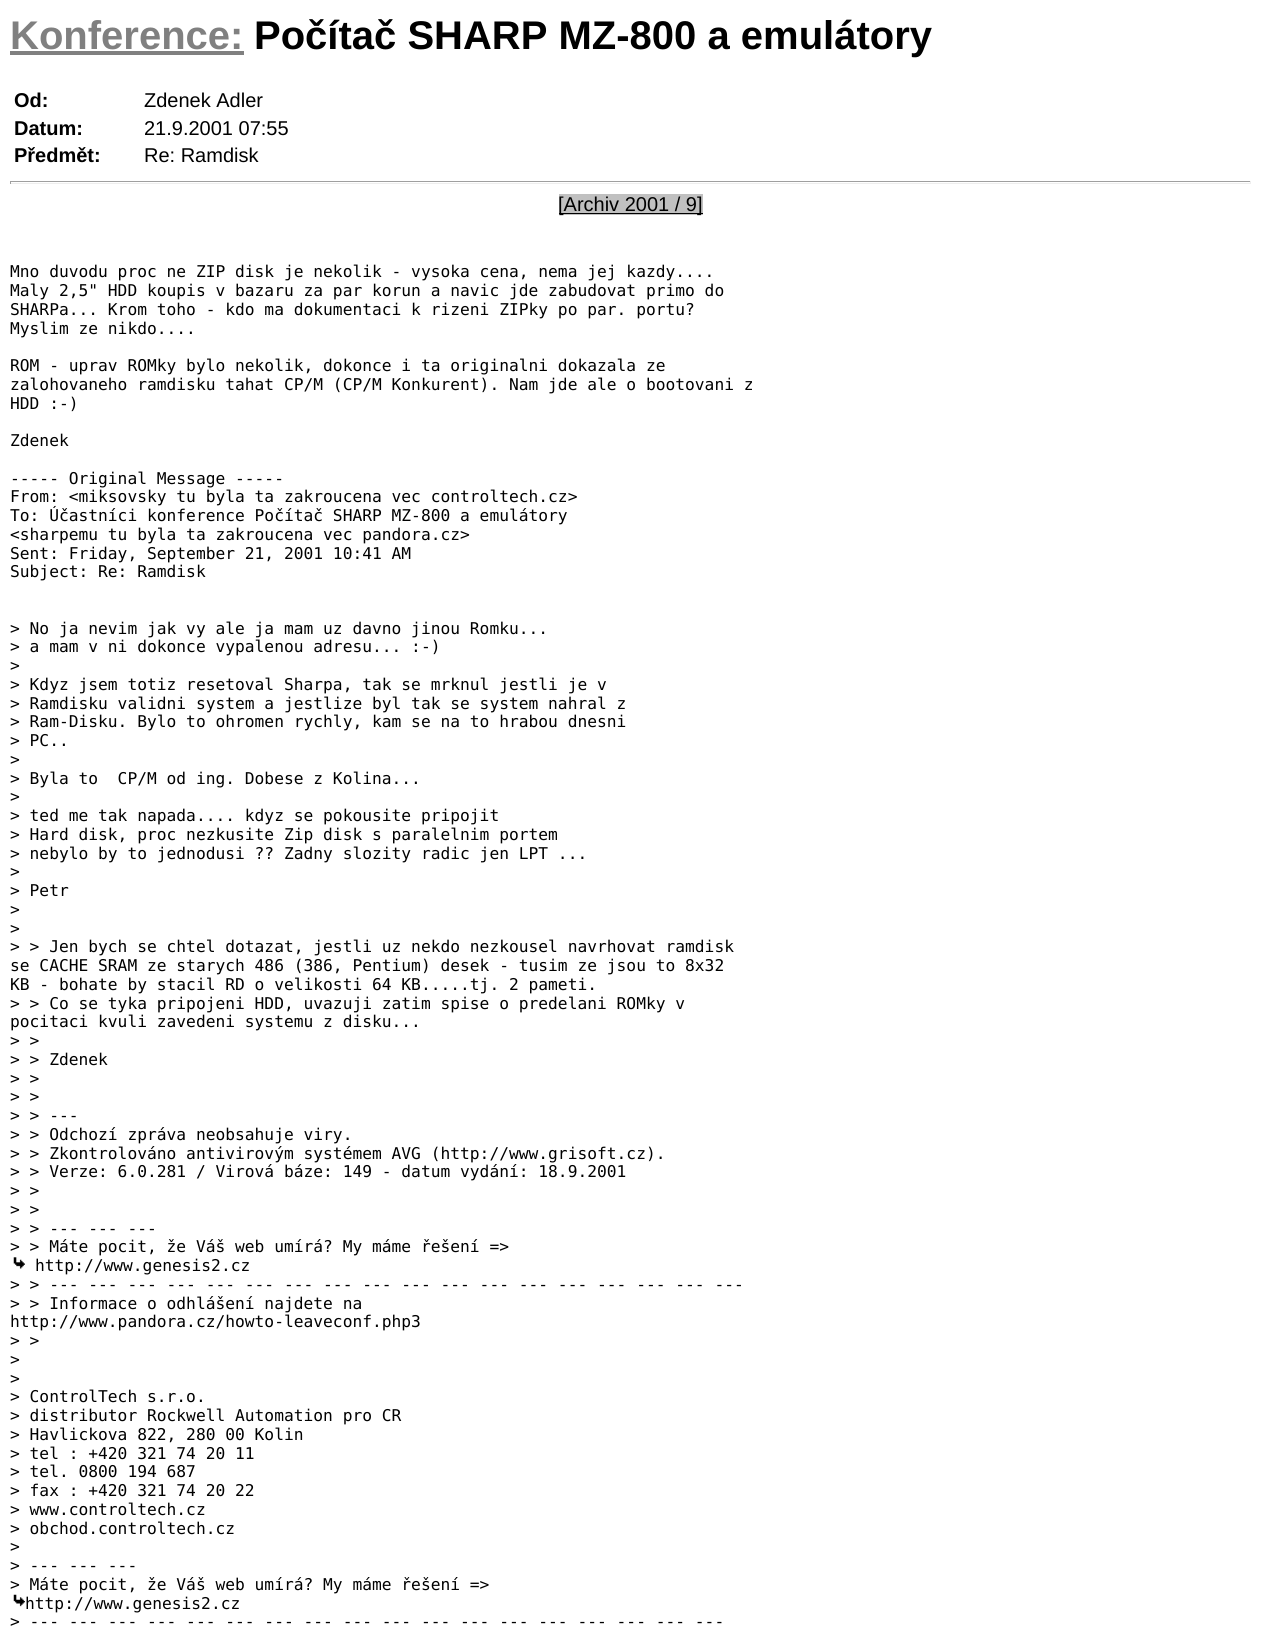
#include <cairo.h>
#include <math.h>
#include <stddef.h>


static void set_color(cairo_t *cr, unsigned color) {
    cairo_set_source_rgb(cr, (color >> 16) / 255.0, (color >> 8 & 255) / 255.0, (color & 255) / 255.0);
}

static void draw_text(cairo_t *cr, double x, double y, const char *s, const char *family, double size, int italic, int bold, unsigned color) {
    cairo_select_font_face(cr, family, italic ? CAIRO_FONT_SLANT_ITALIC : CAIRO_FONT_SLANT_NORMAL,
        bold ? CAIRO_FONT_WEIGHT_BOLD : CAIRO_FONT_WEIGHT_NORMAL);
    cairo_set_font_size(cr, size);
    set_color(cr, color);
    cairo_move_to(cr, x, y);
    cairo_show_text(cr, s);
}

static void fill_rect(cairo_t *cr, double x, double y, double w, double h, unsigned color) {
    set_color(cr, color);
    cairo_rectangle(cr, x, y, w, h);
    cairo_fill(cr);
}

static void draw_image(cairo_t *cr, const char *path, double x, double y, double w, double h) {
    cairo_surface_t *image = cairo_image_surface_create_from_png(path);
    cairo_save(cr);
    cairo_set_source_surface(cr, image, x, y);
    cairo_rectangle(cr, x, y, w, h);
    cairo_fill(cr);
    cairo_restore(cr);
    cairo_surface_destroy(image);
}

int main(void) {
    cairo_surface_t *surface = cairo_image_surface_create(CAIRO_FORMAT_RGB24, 1261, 1641);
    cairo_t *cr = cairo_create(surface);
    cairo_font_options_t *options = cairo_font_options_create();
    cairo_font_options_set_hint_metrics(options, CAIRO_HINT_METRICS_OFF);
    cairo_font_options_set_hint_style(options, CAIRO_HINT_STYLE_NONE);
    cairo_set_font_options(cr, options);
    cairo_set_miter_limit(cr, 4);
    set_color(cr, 0xFFFFFF);
    cairo_paint(cr);
    draw_text(cr, 10, 49, "Konference:", "Liberation Sans", 40, 0, 1, 0x808080);
    fill_rect(cr, 10, 51, 234, 4, 0x808080);
    draw_text(cr, 254, 49, "Počítač SHARP MZ-800 a emulátory", "Liberation Sans", 40, 0, 1, 0x000000);
    draw_text(cr, 14, 107, "Od:", "Liberation Sans", 20, 0, 1, 0x000000);
    draw_text(cr, 144, 107, "Zdenek Adler", "Liberation Sans", 20, 0, 0, 0x000000);
    draw_text(cr, 14, 135, "Datum:", "Liberation Sans", 20, 0, 1, 0x000000);
    draw_text(cr, 144, 135, "21.9.2001 07:55", "Liberation Sans", 20, 0, 0, 0x000000);
    draw_text(cr, 14, 162, "Předmět:", "Liberation Sans", 20, 0, 1, 0x000000);
    draw_text(cr, 144, 162, "Re: Ramdisk", "Liberation Sans", 20, 0, 0, 0x000000);
    fill_rect(cr, 10, 181, 1241, 1, 0x9F9F9F);
    fill_rect(cr, 1250, 181, 1, 3, 0xEEEEEE);
    fill_rect(cr, 10, 183, 1241, 1, 0xEEEEEE);
    fill_rect(cr, 10, 181, 1, 3, 0x9F9F9F);
    fill_rect(cr, 559, 194, 144, 21, 0xC0C0C0);
    fill_rect(cr, 559, 213, 144, 1, 0x000000);
    draw_text(cr, 558, 211, "[Archiv 2001 / 9]", "Liberation Sans", 20, 0, 0, 0x000000);
    draw_text(cr, 10, 277, "Mno duvodu proc ne ZIP disk je nekolik - vysoka cena, nema jej kazdy....", "DejaVu Sans Mono", 16.25, 0, 0, 0x000000);
    draw_text(cr, 10, 296, "Maly 2,5\" HDD koupis v bazaru za par korun a navic jde zabudovat primo do", "DejaVu Sans Mono", 16.25, 0, 0, 0x000000);
    draw_text(cr, 10, 315, "SHARPa... Krom toho - kdo ma dokumentaci k rizeni ZIPky po par. portu?", "DejaVu Sans Mono", 16.25, 0, 0, 0x000000);
    draw_text(cr, 10, 334, "Myslim ze nikdo....", "DejaVu Sans Mono", 16.25, 0, 0, 0x000000);
    draw_text(cr, 10, 371, "ROM - uprav ROMky bylo nekolik, dokonce i ta originalni dokazala ze", "DejaVu Sans Mono", 16.25, 0, 0, 0x000000);
    draw_text(cr, 10, 390, "zalohovaneho ramdisku tahat CP/M (CP/M Konkurent). Nam jde ale o bootovani z", "DejaVu Sans Mono", 16.25, 0, 0, 0x000000);
    draw_text(cr, 10, 409, "HDD :-)", "DejaVu Sans Mono", 16.25, 0, 0, 0x000000);
    draw_text(cr, 10, 446, "Zdenek", "DejaVu Sans Mono", 16.25, 0, 0, 0x000000);
    draw_text(cr, 10, 484, "----- Original Message -----", "DejaVu Sans Mono", 16.25, 0, 0, 0x000000);
    draw_text(cr, 10, 502, "From: <miksovsky tu byla ta zakroucena vec controltech.cz>", "DejaVu Sans Mono", 16.25, 0, 0, 0x000000);
    draw_text(cr, 10, 521, "To: Účastníci konference Počítač SHARP MZ-800 a emulátory", "DejaVu Sans Mono", 16.25, 0, 0, 0x000000);
    draw_text(cr, 10, 540, "<sharpemu tu byla ta zakroucena vec pandora.cz>", "DejaVu Sans Mono", 16.25, 0, 0, 0x000000);
    draw_text(cr, 10, 559, "Sent: Friday, September 21, 2001 10:41 AM", "DejaVu Sans Mono", 16.25, 0, 0, 0x000000);
    draw_text(cr, 10, 577, "Subject: Re: Ramdisk", "DejaVu Sans Mono", 16.25, 0, 0, 0x000000);
    draw_text(cr, 10, 634, "> No ja nevim jak vy ale ja mam uz davno jinou Romku...", "DejaVu Sans Mono", 16.25, 0, 0, 0x000000);
    draw_text(cr, 10, 652, "> a mam v ni dokonce vypalenou adresu... :-)", "DejaVu Sans Mono", 16.25, 0, 0, 0x000000);
    draw_text(cr, 10, 671, ">", "DejaVu Sans Mono", 16.25, 0, 0, 0x000000);
    draw_text(cr, 10, 690, "> Kdyz jsem totiz resetoval Sharpa, tak se mrknul jestli je v", "DejaVu Sans Mono", 16.25, 0, 0, 0x000000);
    draw_text(cr, 10, 709, "> Ramdisku validni system a jestlize byl tak se system nahral z", "DejaVu Sans Mono", 16.25, 0, 0, 0x000000);
    draw_text(cr, 10, 727, "> Ram-Disku. Bylo to ohromen rychly, kam se na to hrabou dnesni", "DejaVu Sans Mono", 16.25, 0, 0, 0x000000);
    draw_text(cr, 10, 746, "> PC..", "DejaVu Sans Mono", 16.25, 0, 0, 0x000000);
    draw_text(cr, 10, 765, ">", "DejaVu Sans Mono", 16.25, 0, 0, 0x000000);
    draw_text(cr, 10, 784, "> Byla to  CP/M od ing. Dobese z Kolina...", "DejaVu Sans Mono", 16.25, 0, 0, 0x000000);
    draw_text(cr, 10, 802, ">", "DejaVu Sans Mono", 16.25, 0, 0, 0x000000);
    draw_text(cr, 10, 821, "> ted me tak napada.... kdyz se pokousite pripojit", "DejaVu Sans Mono", 16.25, 0, 0, 0x000000);
    draw_text(cr, 10, 840, "> Hard disk, proc nezkusite Zip disk s paralelnim portem", "DejaVu Sans Mono", 16.25, 0, 0, 0x000000);
    draw_text(cr, 10, 859, "> nebylo by to jednodusi ?\077 Zadny slozity radic jen LPT ...", "DejaVu Sans Mono", 16.25, 0, 0, 0x000000);
    draw_text(cr, 10, 877, ">", "DejaVu Sans Mono", 16.25, 0, 0, 0x000000);
    draw_text(cr, 10, 896, "> Petr", "DejaVu Sans Mono", 16.25, 0, 0, 0x000000);
    draw_text(cr, 10, 915, ">", "DejaVu Sans Mono", 16.25, 0, 0, 0x000000);
    draw_text(cr, 10, 934, ">", "DejaVu Sans Mono", 16.25, 0, 0, 0x000000);
    draw_text(cr, 10, 952, "> > Jen bych se chtel dotazat, jestli uz nekdo nezkousel navrhovat ramdisk", "DejaVu Sans Mono", 16.25, 0, 0, 0x000000);
    draw_text(cr, 10, 971, "se CACHE SRAM ze starych 486 (386, Pentium) desek - tusim ze jsou to 8x32", "DejaVu Sans Mono", 16.25, 0, 0, 0x000000);
    draw_text(cr, 10, 990, "KB - bohate by stacil RD o velikosti 64 KB.....tj. 2 pameti.", "DejaVu Sans Mono", 16.25, 0, 0, 0x000000);
    draw_text(cr, 10, 1009, "> > Co se tyka pripojeni HDD, uvazuji zatim spise o predelani ROMky v", "DejaVu Sans Mono", 16.25, 0, 0, 0x000000);
    draw_text(cr, 10, 1027, "pocitaci kvuli zavedeni systemu z disku...", "DejaVu Sans Mono", 16.25, 0, 0, 0x000000);
    draw_text(cr, 10, 1046, "> >", "DejaVu Sans Mono", 16.25, 0, 0, 0x000000);
    draw_text(cr, 10, 1065, "> > Zdenek", "DejaVu Sans Mono", 16.25, 0, 0, 0x000000);
    draw_text(cr, 10, 1084, "> >", "DejaVu Sans Mono", 16.25, 0, 0, 0x000000);
    draw_text(cr, 10, 1102, "> >", "DejaVu Sans Mono", 16.25, 0, 0, 0x000000);
    draw_text(cr, 10, 1121, "> > ---", "DejaVu Sans Mono", 16.25, 0, 0, 0x000000);
    draw_text(cr, 10, 1140, "> > Odchozí zpráva neobsahuje viry.", "DejaVu Sans Mono", 16.25, 0, 0, 0x000000);
    draw_text(cr, 10, 1159, "> > Zkontrolováno antivirovým systémem AVG (http://www.grisoft.cz).", "DejaVu Sans Mono", 16.25, 0, 0, 0x000000);
    draw_text(cr, 10, 1177, "> > Verze: 6.0.281 / Virová báze: 149 - datum vydání: 18.9.2001", "DejaVu Sans Mono", 16.25, 0, 0, 0x000000);
    draw_text(cr, 10, 1196, "> >", "DejaVu Sans Mono", 16.25, 0, 0, 0x000000);
    draw_text(cr, 10, 1215, "> >", "DejaVu Sans Mono", 16.25, 0, 0, 0x000000);
    draw_text(cr, 10, 1234, "> > --- --- ---", "DejaVu Sans Mono", 16.25, 0, 0, 0x000000);
    draw_text(cr, 10, 1252, "> > Máte pocit, že Váš web umírá? My máme řešení =>", "DejaVu Sans Mono", 16.25, 0, 0, 0x000000);
    draw_image(cr, "assets/img1.png", 13, 1257, 12, 12);
    draw_text(cr, 35, 1271, "http://www.genesis2.cz", "DejaVu Sans Mono", 16.25, 0, 0, 0x000000);
    draw_text(cr, 10, 1290, "> > --- --- --- --- --- --- --- --- --- --- --- --- --- --- --- --- --- ---", "DejaVu Sans Mono", 16.25, 0, 0, 0x000000);
    draw_text(cr, 10, 1309, "> > Informace o odhlášení najdete na", "DejaVu Sans Mono", 16.25, 0, 0, 0x000000);
    draw_text(cr, 10, 1327, "http://www.pandora.cz/howto-leaveconf.php3", "DejaVu Sans Mono", 16.25, 0, 0, 0x000000);
    draw_text(cr, 10, 1346, "> >", "DejaVu Sans Mono", 16.25, 0, 0, 0x000000);
    draw_text(cr, 10, 1365, ">", "DejaVu Sans Mono", 16.25, 0, 0, 0x000000);
    draw_text(cr, 10, 1384, ">", "DejaVu Sans Mono", 16.25, 0, 0, 0x000000);
    draw_text(cr, 10, 1402, "> ControlTech s.r.o.", "DejaVu Sans Mono", 16.25, 0, 0, 0x000000);
    draw_text(cr, 10, 1421, "> distributor Rockwell Automation pro CR", "DejaVu Sans Mono", 16.25, 0, 0, 0x000000);
    draw_text(cr, 10, 1440, "> Havlickova 822, 280 00 Kolin", "DejaVu Sans Mono", 16.25, 0, 0, 0x000000);
    draw_text(cr, 10, 1459, "> tel : +420 321 74 20 11", "DejaVu Sans Mono", 16.25, 0, 0, 0x000000);
    draw_text(cr, 10, 1477, "> tel. 0800 194 687", "DejaVu Sans Mono", 16.25, 0, 0, 0x000000);
    draw_text(cr, 10, 1496, "> fax : +420 321 74 20 22", "DejaVu Sans Mono", 16.25, 0, 0, 0x000000);
    draw_text(cr, 10, 1515, "> www.controltech.cz", "DejaVu Sans Mono", 16.25, 0, 0, 0x000000);
    draw_text(cr, 10, 1534, "> obchod.controltech.cz", "DejaVu Sans Mono", 16.25, 0, 0, 0x000000);
    draw_text(cr, 10, 1552, ">", "DejaVu Sans Mono", 16.25, 0, 0, 0x000000);
    draw_text(cr, 10, 1571, "> --- --- ---", "DejaVu Sans Mono", 16.25, 0, 0, 0x000000);
    draw_text(cr, 10, 1590, "> Máte pocit, že Váš web umírá? My máme řešení =>", "DejaVu Sans Mono", 16.25, 0, 0, 0x000000);
    draw_image(cr, "assets/img2.png", 13, 1594, 12, 13);
    draw_text(cr, 25, 1609, "http://www.genesis2.cz", "DejaVu Sans Mono", 16.25, 0, 0, 0x000000);
    draw_text(cr, 10, 1627, "> --- --- --- --- --- --- --- --- --- --- --- --- --- --- --- --- --- ---", "DejaVu Sans Mono", 16.25, 0, 0, 0x000000);
    cairo_surface_write_to_png(surface, "output.png");
    cairo_font_options_destroy(options);
    cairo_destroy(cr);
    cairo_surface_destroy(surface);
    return 0;
}
